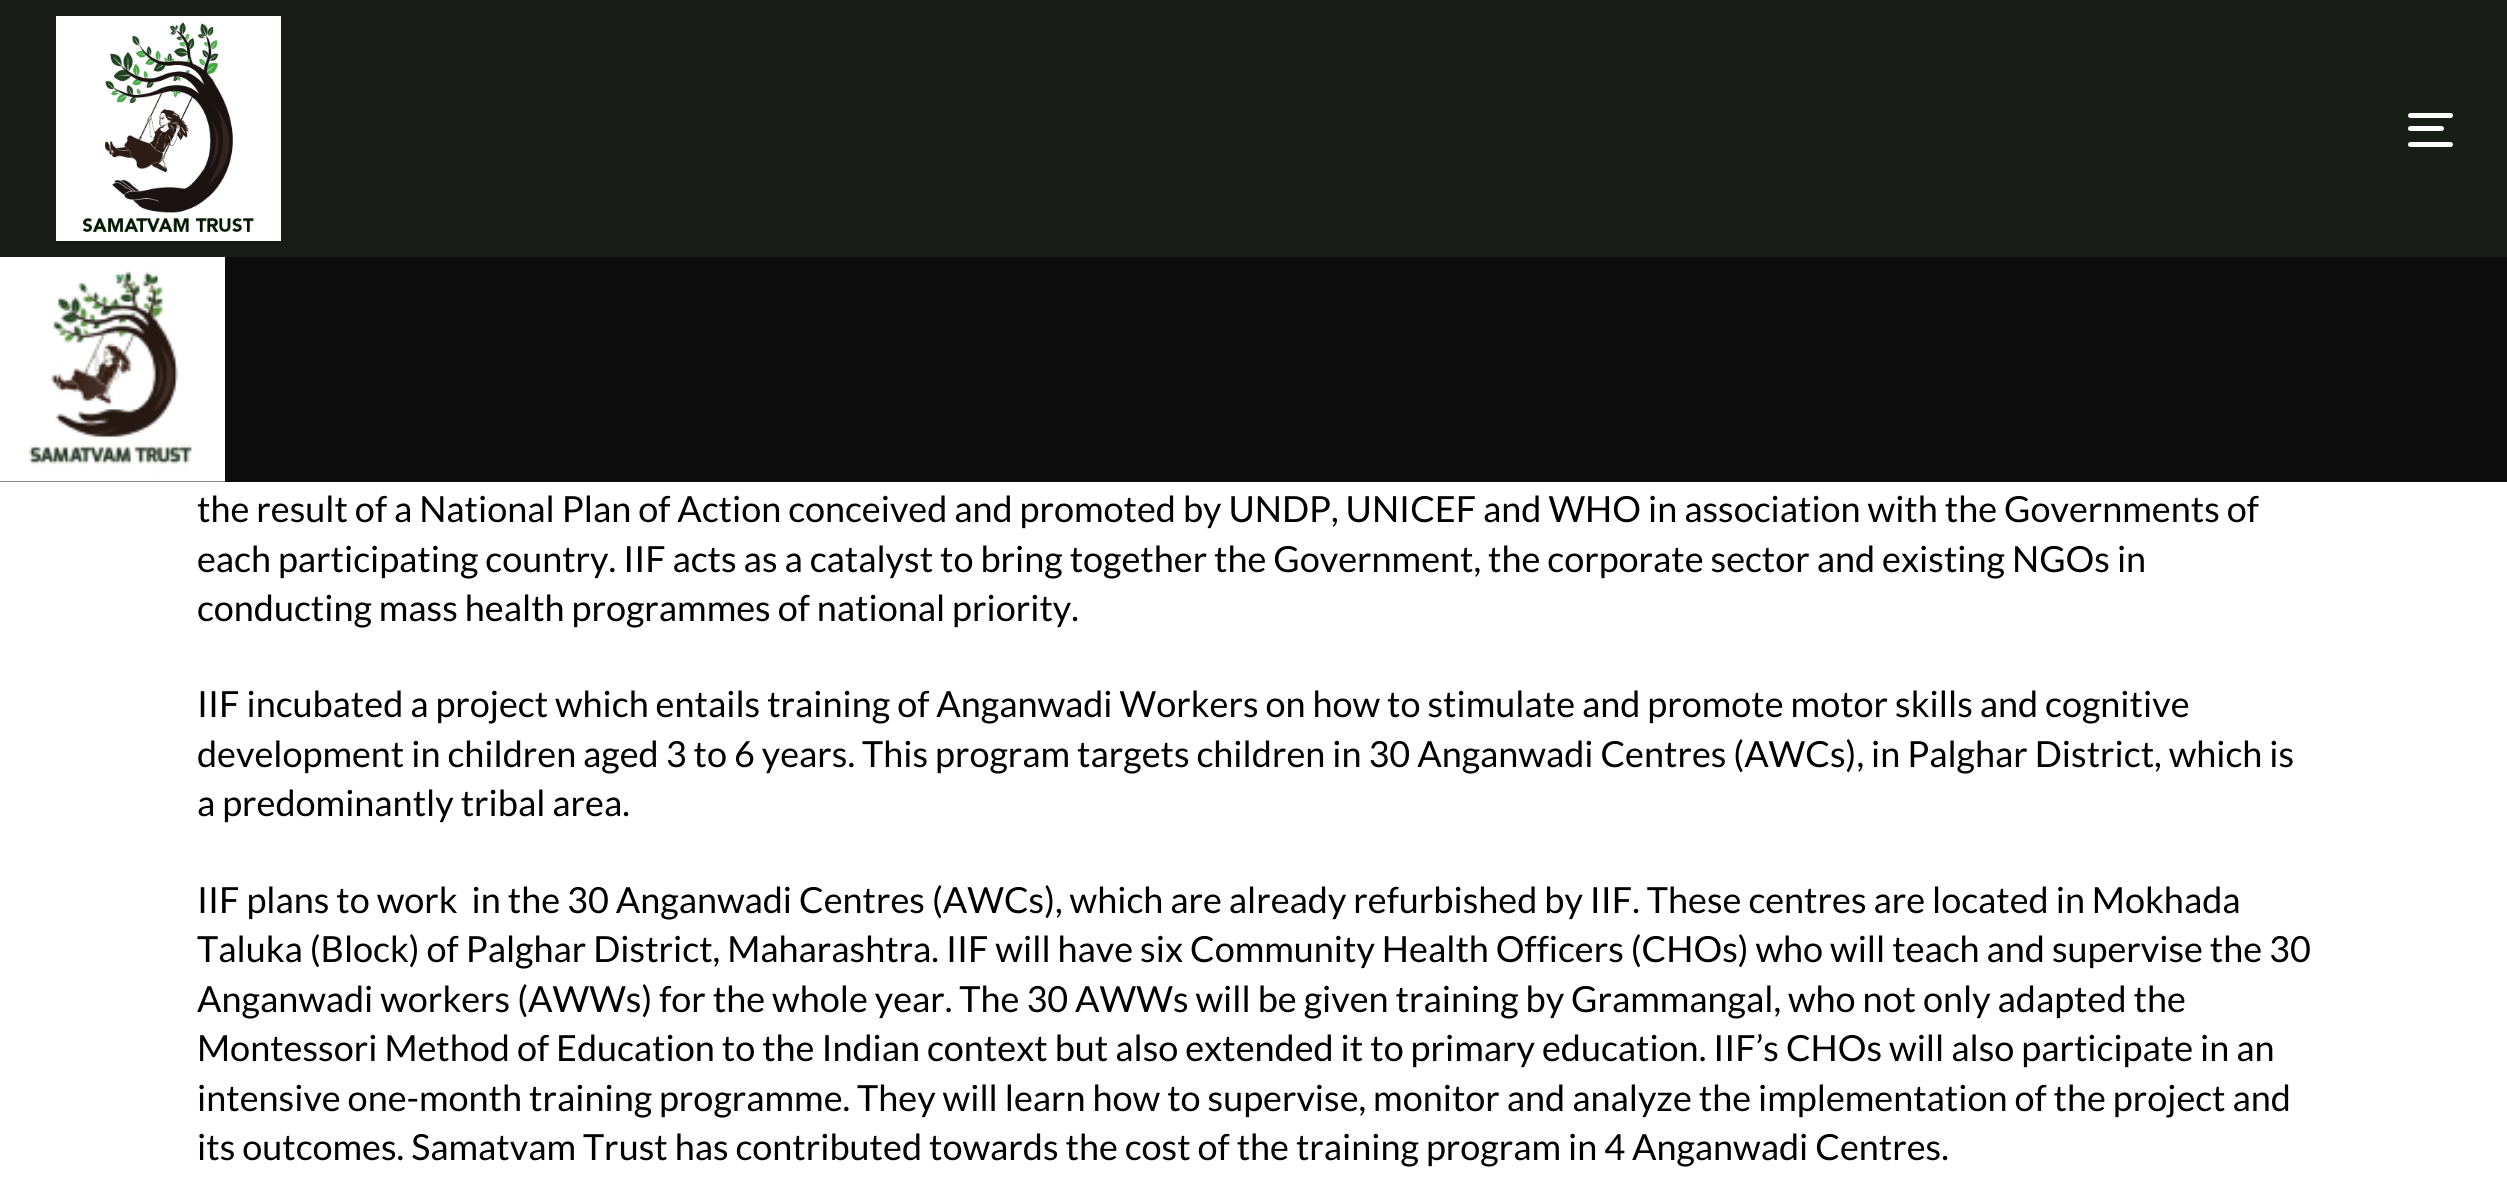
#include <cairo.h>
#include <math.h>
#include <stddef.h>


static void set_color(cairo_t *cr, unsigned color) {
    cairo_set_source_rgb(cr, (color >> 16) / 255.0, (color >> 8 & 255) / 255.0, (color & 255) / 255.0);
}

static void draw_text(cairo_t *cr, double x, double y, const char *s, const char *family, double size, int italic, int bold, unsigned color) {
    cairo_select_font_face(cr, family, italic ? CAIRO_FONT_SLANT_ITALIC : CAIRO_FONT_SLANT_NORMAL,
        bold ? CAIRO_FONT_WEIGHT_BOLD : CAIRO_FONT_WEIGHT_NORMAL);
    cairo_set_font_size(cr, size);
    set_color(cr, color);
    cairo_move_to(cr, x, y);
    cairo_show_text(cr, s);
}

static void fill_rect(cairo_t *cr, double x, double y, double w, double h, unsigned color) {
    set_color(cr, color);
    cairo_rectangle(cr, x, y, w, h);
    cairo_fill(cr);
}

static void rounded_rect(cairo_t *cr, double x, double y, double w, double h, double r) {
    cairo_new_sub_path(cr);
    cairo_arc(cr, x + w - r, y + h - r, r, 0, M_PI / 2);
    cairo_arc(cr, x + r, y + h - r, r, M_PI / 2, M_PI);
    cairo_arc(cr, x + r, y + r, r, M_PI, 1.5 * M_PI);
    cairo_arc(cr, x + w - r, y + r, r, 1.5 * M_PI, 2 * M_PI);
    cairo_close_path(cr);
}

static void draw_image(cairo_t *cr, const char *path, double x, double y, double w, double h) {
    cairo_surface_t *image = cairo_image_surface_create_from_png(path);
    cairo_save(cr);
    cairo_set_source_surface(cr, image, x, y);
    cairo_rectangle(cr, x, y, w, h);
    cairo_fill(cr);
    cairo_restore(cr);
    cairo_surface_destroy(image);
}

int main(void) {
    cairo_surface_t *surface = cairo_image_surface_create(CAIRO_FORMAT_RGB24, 2507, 1183);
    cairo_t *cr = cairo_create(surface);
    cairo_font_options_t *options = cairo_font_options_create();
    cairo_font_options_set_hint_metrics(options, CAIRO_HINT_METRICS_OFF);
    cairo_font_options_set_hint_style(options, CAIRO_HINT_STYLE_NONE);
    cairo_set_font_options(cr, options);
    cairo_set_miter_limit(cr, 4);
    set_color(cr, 0xFFFFFF);
    cairo_paint(cr);
    fill_rect(cr, 0, 257, 2507, 225, 0x0D0C0C);
    fill_rect(cr, 0, 0, 2507, 257, 0x191D18);
    fill_rect(cr, 56, 16, 225, 225, 0xFFFFFF);
    draw_image(cr, "assets/img1.png", 82, 22, 172, 210);
    rounded_rect(cr, 2408, 113, 45, 5, 2.5);
    cairo_fill(cr);
    rounded_rect(cr, 2408, 126, 36, 5, 2.5);
    cairo_fill(cr);
    rounded_rect(cr, 2408, 142, 45, 5, 2.5);
    cairo_fill(cr);
    draw_image(cr, "assets/img2.png", 0, 257, 225, 225);
    draw_text(cr, 197, 522, "the result of a National Plan of Action conceived and promoted by UNDP, UNICEF and WHO in association with the Governments of", "Lato", 36, 0, 0, 0x000000);
    draw_text(cr, 197, 572, "each participating country. IIF acts as a catalyst to bring together the Government, the corporate sector and existing NGOs in", "Lato", 36, 0, 0, 0x000000);
    draw_text(cr, 197, 621, "conducting mass health programmes of national priority.", "Lato", 36, 0, 0, 0x000000);
    draw_text(cr, 197, 717, "IIF incubated a project which entails training of Anganwadi Workers on how to stimulate and promote motor skills and cognitive", "Lato", 36, 0, 0, 0x000000);
    draw_text(cr, 197, 767, "development in children aged 3 to 6 years. This program targets children in 30 Anganwadi Centres (AWCs), in Palghar District, which is", "Lato", 36, 0, 0, 0x000000);
    draw_text(cr, 197, 816, "a predominantly tribal area.", "Lato", 36, 0, 0, 0x000000);
    draw_text(cr, 197, 913, "IIF plans to work  in the 30 Anganwadi Centres (AWCs), which are already refurbished by IIF. These centres are located in Mokhada", "Lato", 36, 0, 0, 0x000000);
    draw_text(cr, 197, 962, "Taluka (Block) of Palghar District, Maharashtra. IIF will have six Community Health Officers (CHOs) who will teach and supervise the 30", "Lato", 36, 0, 0, 0x000000);
    draw_text(cr, 197, 1012, "Anganwadi workers (AWWs) for the whole year. The 30 AWWs will be given training by Grammangal, who not only adapted the", "Lato", 36, 0, 0, 0x000000);
    draw_text(cr, 197, 1061, "Montessori Method of Education to the Indian context but also extended it to primary education. IIF’s CHOs will also participate in an", "Lato", 36, 0, 0, 0x000000);
    draw_text(cr, 197, 1111, "intensive one-month training programme. They will learn how to supervise, monitor and analyze the implementation of the project and", "Lato", 36, 0, 0, 0x000000);
    draw_text(cr, 197, 1160, "its outcomes. Samatvam Trust has contributed towards the cost of the training program in 4 Anganwadi Centres.", "Lato", 36, 0, 0, 0x000000);
    cairo_surface_write_to_png(surface, "output.png");
    cairo_font_options_destroy(options);
    cairo_destroy(cr);
    cairo_surface_destroy(surface);
    return 0;
}
